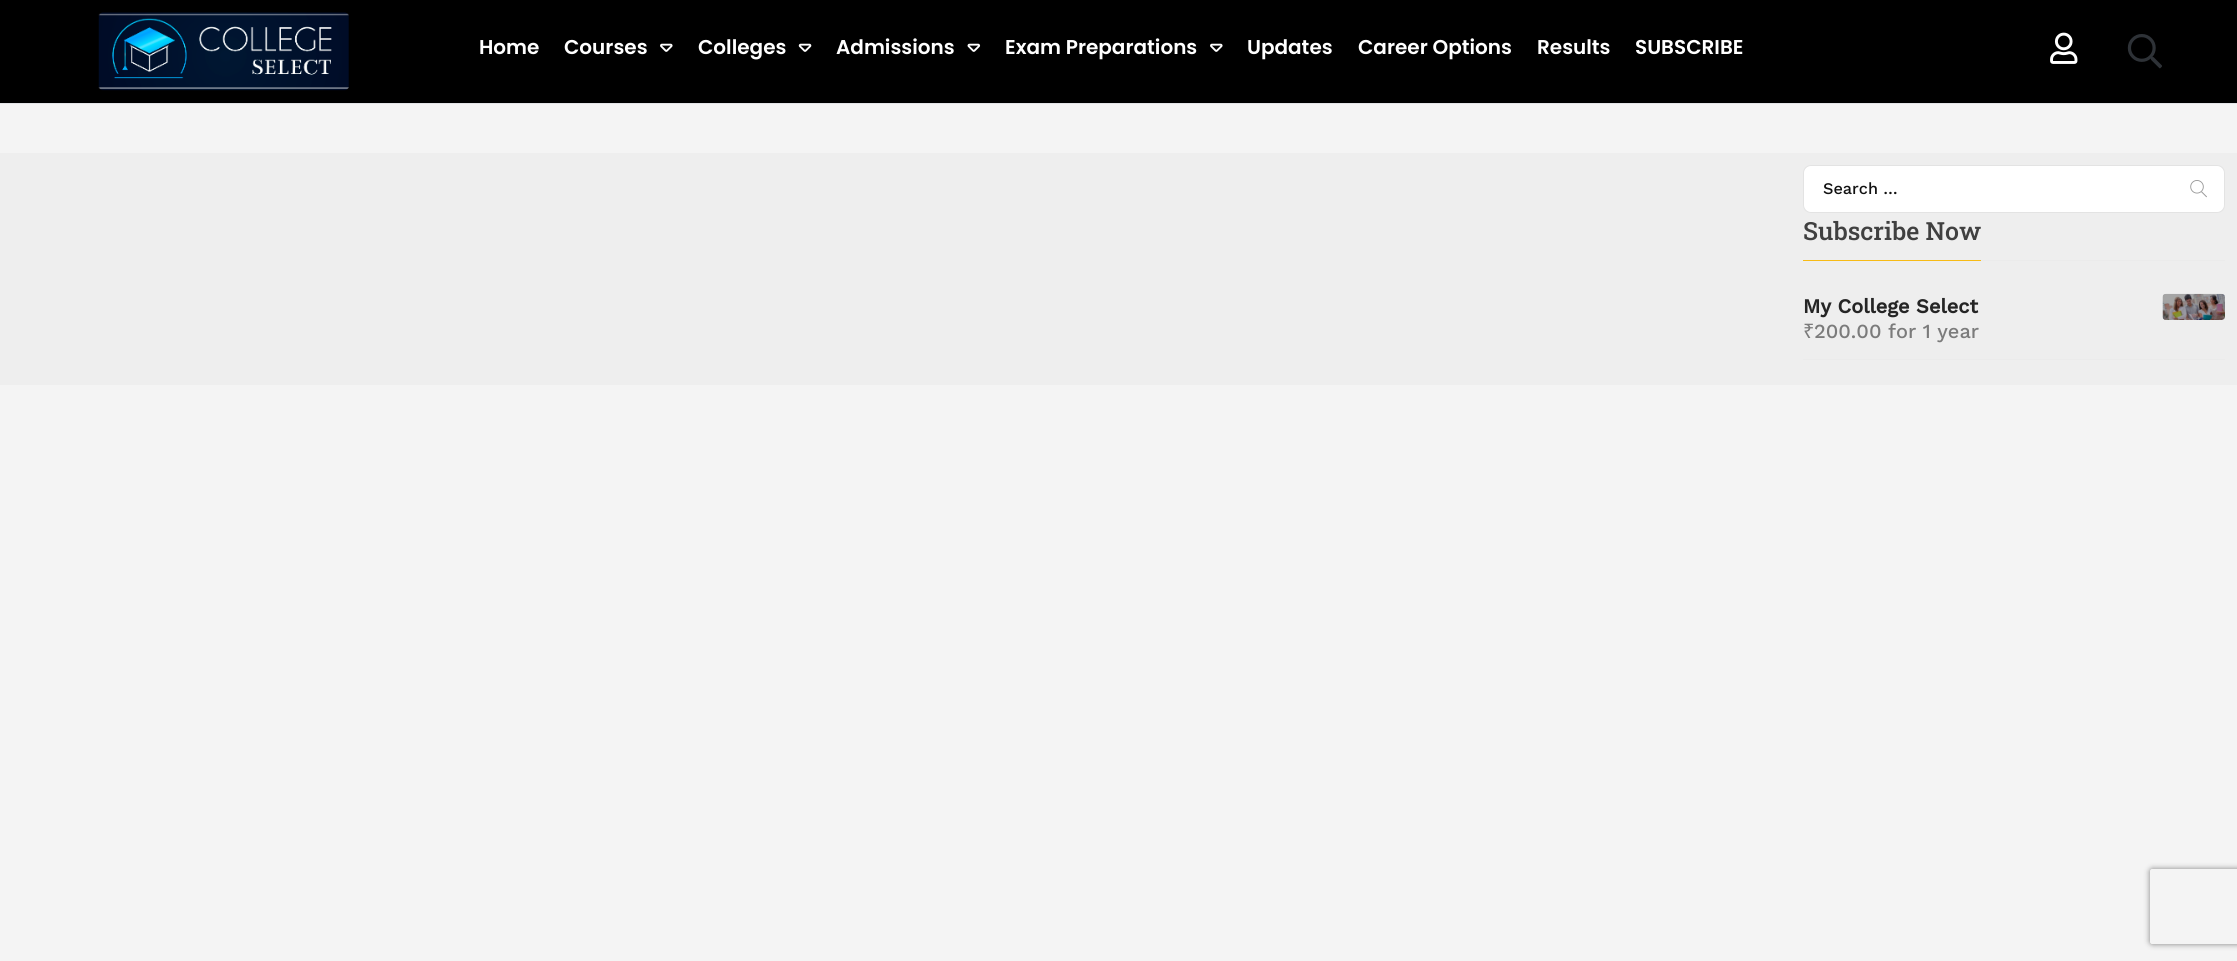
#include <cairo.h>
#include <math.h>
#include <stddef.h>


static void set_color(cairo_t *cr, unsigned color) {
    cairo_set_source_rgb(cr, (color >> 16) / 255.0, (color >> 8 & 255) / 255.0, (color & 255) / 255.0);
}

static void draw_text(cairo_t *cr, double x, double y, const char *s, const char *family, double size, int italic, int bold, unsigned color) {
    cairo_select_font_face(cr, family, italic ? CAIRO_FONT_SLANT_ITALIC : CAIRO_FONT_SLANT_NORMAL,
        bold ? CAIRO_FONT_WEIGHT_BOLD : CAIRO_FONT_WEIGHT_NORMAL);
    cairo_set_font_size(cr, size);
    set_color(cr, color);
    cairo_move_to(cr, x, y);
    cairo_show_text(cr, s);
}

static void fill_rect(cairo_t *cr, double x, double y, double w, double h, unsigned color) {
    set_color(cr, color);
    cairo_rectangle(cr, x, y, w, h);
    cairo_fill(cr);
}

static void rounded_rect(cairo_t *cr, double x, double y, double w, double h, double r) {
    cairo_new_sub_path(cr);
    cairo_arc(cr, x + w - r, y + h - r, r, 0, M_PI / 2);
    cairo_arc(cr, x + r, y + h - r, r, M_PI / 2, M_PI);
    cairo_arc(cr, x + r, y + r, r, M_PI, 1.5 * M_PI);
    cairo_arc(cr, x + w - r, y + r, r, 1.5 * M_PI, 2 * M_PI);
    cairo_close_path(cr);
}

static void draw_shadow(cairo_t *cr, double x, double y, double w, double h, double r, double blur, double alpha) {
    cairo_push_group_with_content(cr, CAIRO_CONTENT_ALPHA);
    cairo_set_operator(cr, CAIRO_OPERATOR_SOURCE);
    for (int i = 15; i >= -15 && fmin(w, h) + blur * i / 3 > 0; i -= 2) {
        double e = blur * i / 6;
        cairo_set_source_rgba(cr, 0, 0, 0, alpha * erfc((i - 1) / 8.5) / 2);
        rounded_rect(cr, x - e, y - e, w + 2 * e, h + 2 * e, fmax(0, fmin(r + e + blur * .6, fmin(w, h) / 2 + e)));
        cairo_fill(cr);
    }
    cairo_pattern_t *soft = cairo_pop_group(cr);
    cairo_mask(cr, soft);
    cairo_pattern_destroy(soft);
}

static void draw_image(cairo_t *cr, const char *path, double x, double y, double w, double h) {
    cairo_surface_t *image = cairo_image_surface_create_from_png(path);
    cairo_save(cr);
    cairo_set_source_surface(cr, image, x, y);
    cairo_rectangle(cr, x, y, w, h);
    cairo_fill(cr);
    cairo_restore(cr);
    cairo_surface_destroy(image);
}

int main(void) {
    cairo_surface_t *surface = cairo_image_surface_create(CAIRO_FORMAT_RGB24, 2237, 961);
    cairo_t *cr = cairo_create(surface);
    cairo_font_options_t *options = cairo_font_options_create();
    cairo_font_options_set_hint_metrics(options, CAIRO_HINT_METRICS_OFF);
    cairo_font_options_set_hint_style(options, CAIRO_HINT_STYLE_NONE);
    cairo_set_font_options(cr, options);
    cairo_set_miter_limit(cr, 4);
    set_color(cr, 0xF4F4F4);
    cairo_paint(cr);
    set_color(cr, 0xE2E3E6);
    cairo_new_path(cr);
    cairo_move_to(cr, 0, 102);
    cairo_line_to(cr, 0, 104);
    cairo_line_to(cr, 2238, 104);
    cairo_line_to(cr, 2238, 1);
    cairo_line_to(cr, 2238, 102);
    cairo_close_path(cr);
    cairo_fill(cr);
    fill_rect(cr, 0, 0, 2237, 103, 0x000000);
    draw_image(cr, "assets/img1.png", 98, 12, 251, 79);
    draw_text(cr, 479, 54, "Home", "Poppins SemiBold", 20, 0, 0, 0xFFFFFF);
    draw_text(cr, 564, 54, "Courses", "Poppins SemiBold", 20, 0, 0, 0xFFFFFF);
    draw_image(cr, "assets/img2.png", 660, 43, 13, 9);
    draw_text(cr, 698, 54, "Colleges", "Poppins SemiBold", 20, 0, 0, 0xFFFFFF);
    draw_image(cr, "assets/img3.png", 798, 43, 14, 9);
    draw_text(cr, 836, 54, "Admissions", "Poppins SemiBold", 20, 0, 0, 0xFFFFFF);
    draw_image(cr, "assets/img4.png", 967, 43, 14, 9);
    draw_text(cr, 1005, 54, "Exam Preparations", "Poppins SemiBold", 20, 0, 0, 0xFFFFFF);
    draw_image(cr, "assets/img2.png", 1210, 43, 13, 9);
    draw_text(cr, 1247, 54, "Updates", "Poppins SemiBold", 20, 0, 0, 0xFFFFFF);
    draw_text(cr, 1358, 54, "Career Options", "Poppins SemiBold", 20, 0, 0, 0xFFFFFF);
    draw_text(cr, 1537, 54, "Results", "Poppins SemiBold", 20, 0, 0, 0xFFFFFF);
    draw_text(cr, 1635, 54, "SUBSCRIBE", "Poppins SemiBold", 20, 0, 0, 0xFFFFFF);
    draw_image(cr, "assets/img5.png", 2050, 32, 28, 32);
    draw_image(cr, "assets/img6.png", 2127, 34, 35, 35);
    fill_rect(cr, 0, 153, 2237, 232, 0xEEEEEE);
    set_color(cr, 0xFFFFFF);
    rounded_rect(cr, 1803.5, 165.5, 421, 47, 7.5);
    cairo_fill_preserve(cr);
    set_color(cr, 0xE3E3E3);
    cairo_set_line_width(cr, 1);
    cairo_stroke(cr);
    draw_text(cr, 1823, 194, "Search …", "Work Sans Medium", 16.25, 0, 0, 0x111111);
    draw_image(cr, "assets/img7.png", 2190, 180, 17, 18);
    fill_rect(cr, 1981, 260, 244, 1, 0xEBEBEB);
    fill_rect(cr, 1803, 260, 178, 1, 0xF7BB16);
    draw_text(cr, 1803, 240, "Subscribe Now", "Roboto Slab Medium", 25, 0, 0, 0x404040);
    fill_rect(cr, 1803, 359, 422, 1, 0xEBEBEB);
    draw_text(cr, 1803, 313, "My College Select", "Work Sans", 20, 0, 1, 0x252525);
    draw_image(cr, "assets/img8.png", 2162, 293, 63, 27);
    draw_text(cr, 1803, 338, "₹", "Noto Sans", 20, 0, 0, 0x7B7B7B);
    draw_text(cr, 1814, 338, "200.00 for 1 year", "Work Sans Medium", 20, 0, 0, 0x7B7B7B);
    cairo_save(cr);
    cairo_set_fill_rule(cr, CAIRO_FILL_RULE_EVEN_ODD);
    cairo_new_path(cr);
    cairo_move_to(cr, 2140, 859);
    cairo_line_to(cr, 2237, 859);
    cairo_line_to(cr, 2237, 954);
    cairo_line_to(cr, 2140, 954);
    cairo_close_path(cr);
    cairo_move_to(cr, 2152.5, 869);
    cairo_line_to(cr, 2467.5, 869);
    cairo_curve_to(cr, 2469, 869, 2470, 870, 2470, 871.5);
    cairo_line_to(cr, 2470, 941.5);
    cairo_curve_to(cr, 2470, 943, 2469, 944, 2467.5, 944);
    cairo_line_to(cr, 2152.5, 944);
    cairo_curve_to(cr, 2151, 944, 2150, 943, 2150, 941.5);
    cairo_line_to(cr, 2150, 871.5);
    cairo_curve_to(cr, 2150, 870, 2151, 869, 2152.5, 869);
    cairo_close_path(cr);
    cairo_clip(cr);
    set_color(cr, 0x808080);
    draw_shadow(cr, 2150, 869, 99, 75, 2.5, 3, 1);
    cairo_restore(cr);
    cairo_surface_write_to_png(surface, "output.png");
    cairo_font_options_destroy(options);
    cairo_destroy(cr);
    cairo_surface_destroy(surface);
    return 0;
}
